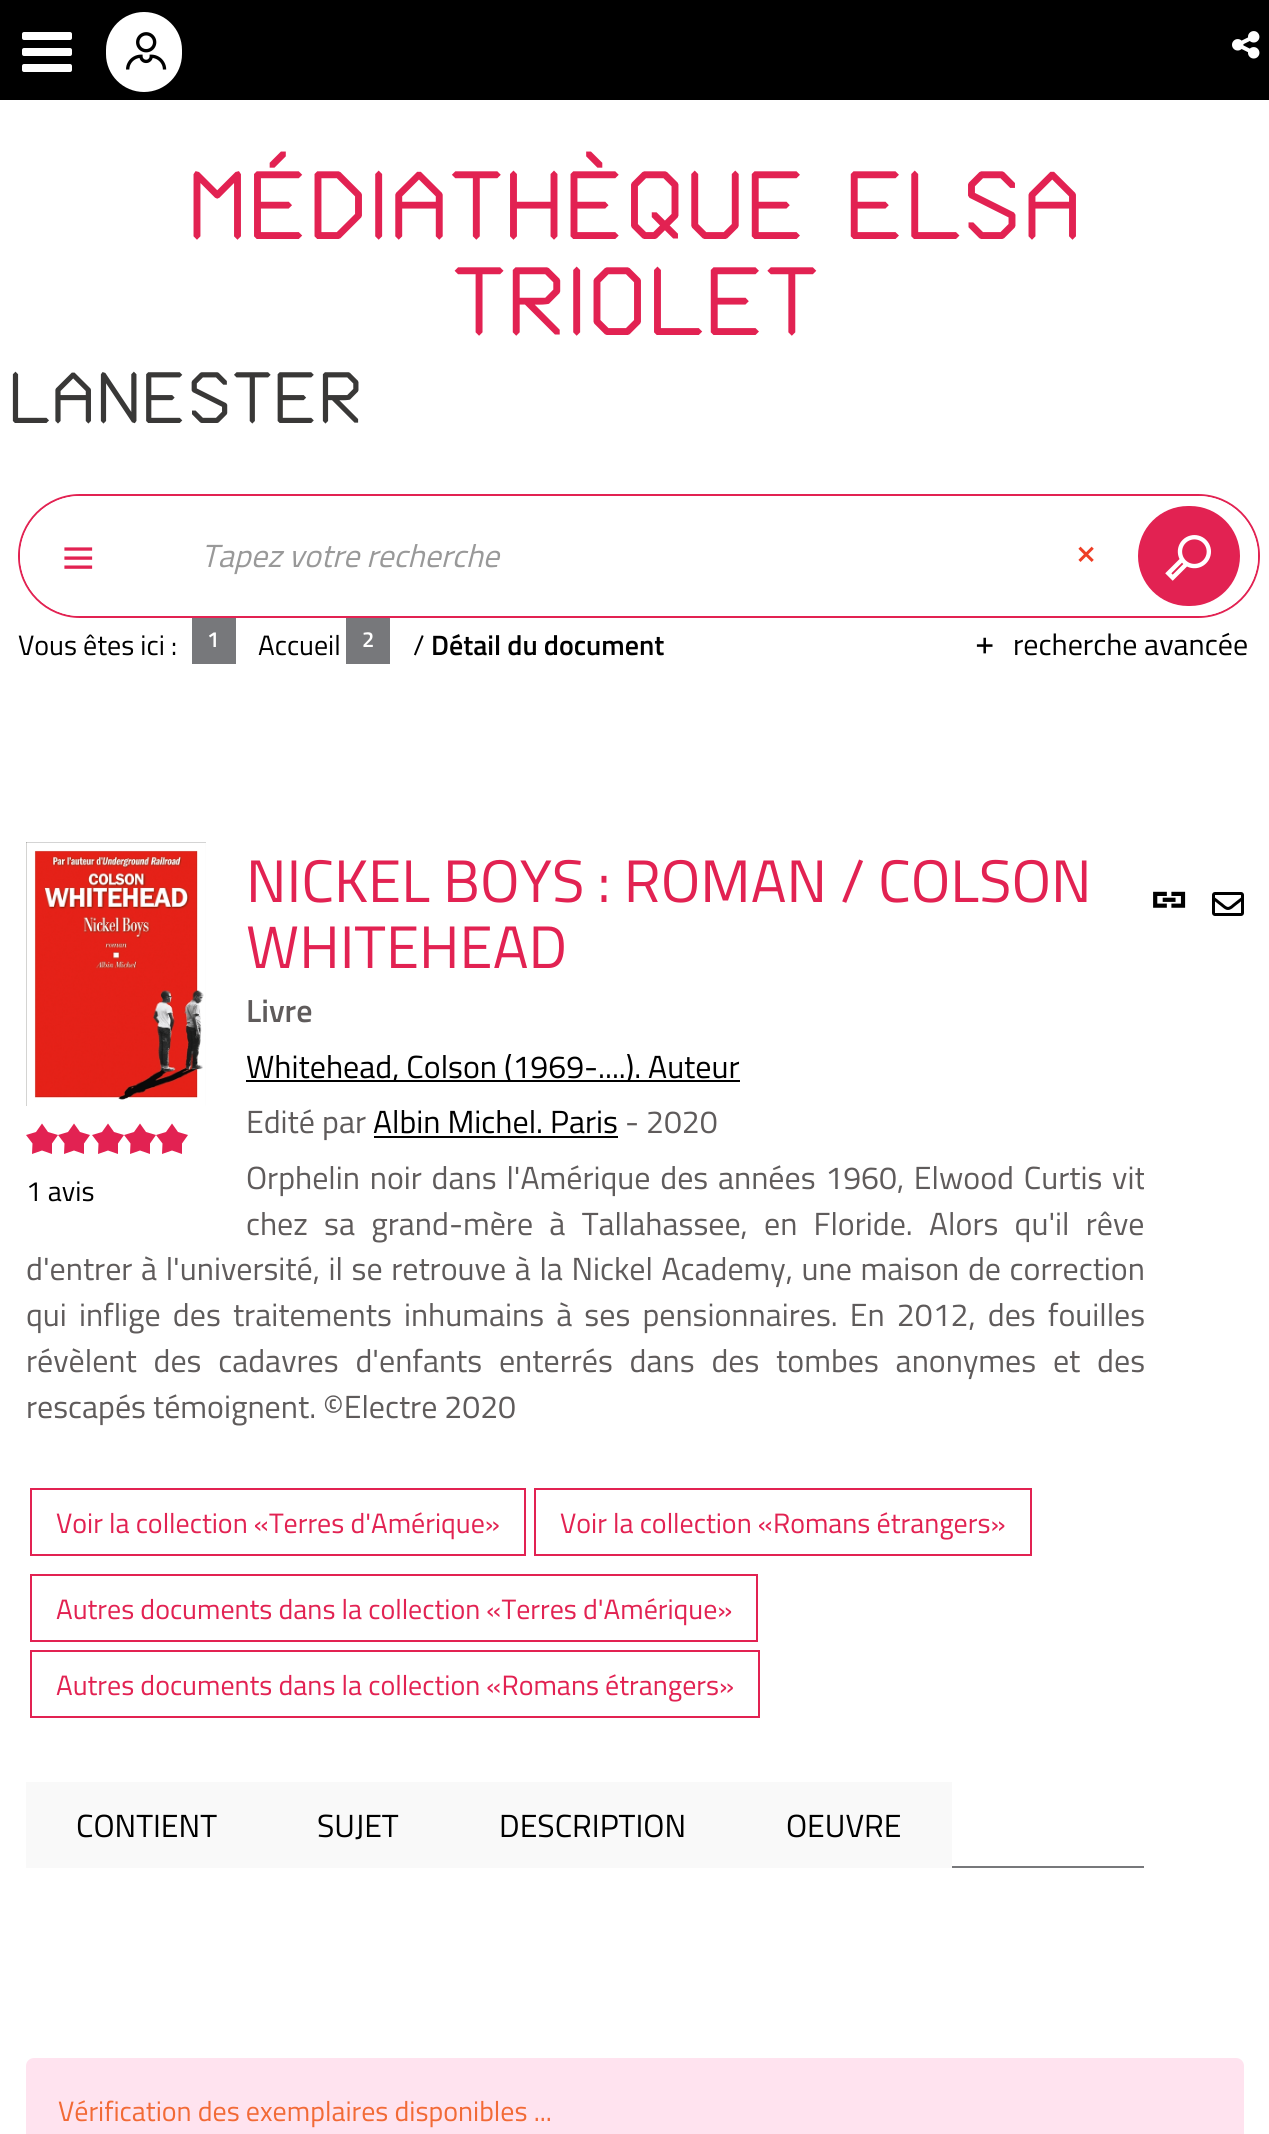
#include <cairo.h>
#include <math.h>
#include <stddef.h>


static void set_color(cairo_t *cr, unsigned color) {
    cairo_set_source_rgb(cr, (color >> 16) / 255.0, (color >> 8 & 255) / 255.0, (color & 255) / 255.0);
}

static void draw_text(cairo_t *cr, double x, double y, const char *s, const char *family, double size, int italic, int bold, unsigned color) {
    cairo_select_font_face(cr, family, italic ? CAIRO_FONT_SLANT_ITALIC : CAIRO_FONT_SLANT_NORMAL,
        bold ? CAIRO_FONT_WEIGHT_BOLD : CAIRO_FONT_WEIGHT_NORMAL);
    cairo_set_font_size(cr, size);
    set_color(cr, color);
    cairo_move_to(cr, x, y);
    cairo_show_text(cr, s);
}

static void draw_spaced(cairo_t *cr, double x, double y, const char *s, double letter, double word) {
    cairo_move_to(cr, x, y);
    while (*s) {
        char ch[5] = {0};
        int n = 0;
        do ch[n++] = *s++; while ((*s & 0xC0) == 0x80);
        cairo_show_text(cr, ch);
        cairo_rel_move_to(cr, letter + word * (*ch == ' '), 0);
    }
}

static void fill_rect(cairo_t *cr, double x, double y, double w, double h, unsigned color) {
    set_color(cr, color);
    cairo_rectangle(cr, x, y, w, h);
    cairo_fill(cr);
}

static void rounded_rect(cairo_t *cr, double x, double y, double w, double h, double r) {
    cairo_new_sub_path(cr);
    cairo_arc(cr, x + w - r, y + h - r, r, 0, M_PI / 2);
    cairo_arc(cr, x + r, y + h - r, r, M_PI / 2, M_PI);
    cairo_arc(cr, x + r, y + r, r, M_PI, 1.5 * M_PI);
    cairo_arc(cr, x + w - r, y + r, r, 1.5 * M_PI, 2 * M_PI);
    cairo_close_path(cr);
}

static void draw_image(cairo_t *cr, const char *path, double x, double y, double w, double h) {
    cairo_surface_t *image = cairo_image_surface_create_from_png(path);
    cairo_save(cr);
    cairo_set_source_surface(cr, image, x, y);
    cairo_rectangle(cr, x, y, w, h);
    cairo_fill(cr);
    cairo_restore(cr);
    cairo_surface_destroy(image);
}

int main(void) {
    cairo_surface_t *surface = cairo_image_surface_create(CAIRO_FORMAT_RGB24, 1269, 2134);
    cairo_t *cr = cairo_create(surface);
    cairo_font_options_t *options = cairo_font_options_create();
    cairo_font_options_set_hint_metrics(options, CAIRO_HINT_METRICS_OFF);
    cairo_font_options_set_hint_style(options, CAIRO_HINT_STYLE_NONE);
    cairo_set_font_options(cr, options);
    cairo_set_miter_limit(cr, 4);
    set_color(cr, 0xFFFFFF);
    cairo_paint(cr);
    fill_rect(cr, 0, 0, 1269, 100, 0x000000);
    set_color(cr, 0xFFFFFF);
    rounded_rect(cr, 22, 32, 50, 8, 2);
    cairo_fill(cr);
    rounded_rect(cr, 22, 48, 50, 8, 2);
    cairo_fill(cr);
    rounded_rect(cr, 22, 64, 50, 8, 2);
    cairo_fill(cr);
    rounded_rect(cr, 106, 12, 76, 80, 38);
    cairo_fill(cr);
    draw_image(cr, "assets/img1.png", 126, 32, 41, 38);
    draw_image(cr, "assets/img2.png", 1232, 31, 28, 28);
    draw_text(cr, 187, 239, "MÉDIATHÈQUE ELSA", "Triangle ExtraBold", 96, 0, 0, 0xE22252);
    draw_text(cr, 452, 335, "TRIOLET", "Triangle ExtraBold", 96, 0, 0, 0xE22252);
    draw_text(cr, 8, 423, "LANESTER", "Triangle ExtraBold", 72, 0, 0, 0x393837);
    rounded_rect(cr, 19, 495, 1240, 122, 61);
    set_color(cr, 0xE22252);
    cairo_stroke(cr);
    set_color(cr, 0xFFFFFF);
    cairo_new_path(cr);
    cairo_move_to(cr, 80, 497);
    cairo_line_to(cr, 175, 497);
    cairo_line_to(cr, 175, 615);
    cairo_line_to(cr, 80, 615);
    cairo_curve_to(cr, 47.5, 615, 21, 588.5, 21, 556);
    cairo_curve_to(cr, 21, 523.5, 47.5, 497, 80, 497);
    cairo_close_path(cr);
    cairo_fill_preserve(cr);
    cairo_stroke(cr);
    draw_image(cr, "assets/img3.png", 64, 547, 29, 22);
    draw_text(cr, 201, 567, "Tapez votre recherche", "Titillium", 32, 1, 0, 0x999999);
    draw_image(cr, "assets/img4.png", 1078, 546, 16, 16);
    set_color(cr, 0xFFFFFF);
    cairo_new_path(cr);
    cairo_move_to(cr, 1137, 497);
    cairo_line_to(cr, 1198, 497);
    cairo_curve_to(cr, 1230.5, 497, 1257, 523.5, 1257, 556);
    cairo_curve_to(cr, 1257, 588.5, 1230.5, 615, 1198, 615);
    cairo_line_to(cr, 1137, 615);
    cairo_close_path(cr);
    cairo_fill_preserve(cr);
    cairo_stroke(cr);
    set_color(cr, 0xE22252);
    rounded_rect(cr, 1138, 506, 102, 100, 50);
    cairo_fill(cr);
    draw_image(cr, "assets/img5.png", 1165, 535, 46, 46);
    draw_image(cr, "assets/img6.png", 976, 637, 17, 17);
    draw_text(cr, 1013, 655, "recherche avancée", "Titillium", 30, 0, 0, 0x000000);
    draw_text(cr, 18, 655, "Vous êtes ici :", "Titillium", 28, 0, 0, 0x000000);
    fill_rect(cr, 192, 618, 44, 46, 0x77787B);
    draw_text(cr, 207, 647, "1", "Titillium SemiBold", 22, 0, 0, 0xFFFFFF);
    draw_text(cr, 258, 655, "Accueil", "Titillium", 28, 0, 0, 0x000000);
    fill_rect(cr, 346, 618, 44, 46, 0x77787B);
    draw_text(cr, 362, 647, "2", "Titillium SemiBold", 22, 0, 0, 0xFFFFFF);
    draw_text(cr, 413, 655, "/", "Titillium", 28, 0, 0, 0x000000);
    draw_text(cr, 431, 655, "Détail du document", "Titillium SemiBold", 28, 0, 0, 0x000000);
    draw_text(cr, 246, 902, "NICKEL BOYS : ROMAN / COLSON", "Titillium", 60, 0, 0, 0xE22252);
    draw_text(cr, 246, 968, "WHITEHEAD", "Titillium", 60, 0, 0, 0xE22252);
    draw_text(cr, 246, 1022, "Livre", "Titillium SemiBold", 32, 0, 0, 0x5F5B5B);
    fill_rect(cr, 246, 1080, 494, 2, 0x000000);
    draw_text(cr, 246, 1078, "Whitehead, Colson (1969-....). Auteur", "Titillium", 32, 0, 0, 0x000000);
    draw_text(cr, 246, 1133, "Edité par", "Titillium", 32, 0, 0, 0x5F5B5B);
    draw_text(cr, 373, 1133, "Albin Michel. Paris", "Titillium", 32, 0, 0, 0x000000);
    fill_rect(cr, 374, 1136, 244, 2, 0x000000);
    draw_text(cr, 625, 1133, "- 2020", "Titillium", 32, 0, 0, 0x5F5B5B);
    cairo_save(cr);
    cairo_rectangle(cr, 26, 842, 1118, 1156);
    cairo_clip(cr);
    draw_spaced(cr, 246, 1189, "Orphelin noir dans l'Amérique des années 1960, Elwood Curtis vit", 0, 2.75);
    cairo_restore(cr);
    draw_spaced(cr, 246, 1235, "chez sa grand-mère à Tallahassee, en Floride. Alors qu'il rêve", 0, 9.25);
    draw_spaced(cr, 26, 1280, "d'entrer à l'université, il se retrouve à la Nickel Academy, une maison de correction", 0, 1.6);
    draw_spaced(cr, 26, 1326, "qui inflige des traitements inhumains à ses pensionnaires. En 2012, des fouilles", 0, 5.1);
    draw_spaced(cr, 26, 1372, "révèlent des cadavres d'enfants enterrés dans des tombes anonymes et des", 0, 9.75);
    draw_text(cr, 26, 1418, "rescapés témoignent. ©Electre 2020", "Titillium", 32, 0, 0, 0x5F5B5B);
    cairo_rectangle(cr, 31, 1489, 494, 66);
    set_color(cr, 0xE22252);
    cairo_stroke(cr);
    draw_text(cr, 56, 1533, "Voir la collection «Terres d'Amérique»", "Titillium", 28, 0, 0, 0xE22252);
    cairo_rectangle(cr, 535, 1489, 496, 66);
    cairo_stroke(cr);
    draw_text(cr, 560, 1533, "Voir la collection «Romans étrangers»", "Titillium", 28, 0, 0, 0xE22252);
    cairo_rectangle(cr, 31, 1575, 726, 66);
    cairo_stroke(cr);
    draw_text(cr, 56, 1619, "Autres documents dans la collection «Terres d'Amérique»", "Titillium", 28, 0, 0, 0xE22252);
    cairo_rectangle(cr, 31, 1651, 728, 66);
    cairo_stroke(cr);
    draw_text(cr, 56, 1695, "Autres documents dans la collection «Romans étrangers»", "Titillium", 28, 0, 0, 0xE22252);
    fill_rect(cr, 952, 1866, 192, 2, 0x77787B);
    fill_rect(cr, 26, 1782, 926, 86, 0xF9F9F9);
    draw_text(cr, 76, 1837, "CONTIENT", "Titillium", 32, 0, 0, 0x000000);
    draw_text(cr, 317, 1837, "SUJET", "Titillium", 32, 0, 0, 0x000000);
    draw_text(cr, 499, 1837, "DESCRIPTION", "Titillium", 32, 0, 0, 0x000000);
    draw_text(cr, 786, 1837, "OEUVRE", "Titillium", 32, 0, 0, 0x000000);
    draw_image(cr, "assets/img7.png", 26, 842, 180, 264);
    set_color(cr, 0xE22252);
    cairo_new_path(cr);
    cairo_move_to(cr, 32, 1154);
    cairo_line_to(cr, 32.5, 1143.5);
    cairo_line_to(cr, 26, 1135);
    cairo_line_to(cr, 36, 1132);
    cairo_line_to(cr, 42, 1123.5);
    cairo_line_to(cr, 48, 1132);
    cairo_line_to(cr, 58, 1135);
    cairo_line_to(cr, 52, 1143.5);
    cairo_line_to(cr, 52, 1154);
    cairo_line_to(cr, 42, 1150.5);
    cairo_close_path(cr);
    cairo_fill(cr);
    cairo_new_path(cr);
    cairo_move_to(cr, 64, 1154);
    cairo_line_to(cr, 64.5, 1143.5);
    cairo_line_to(cr, 58, 1135);
    cairo_line_to(cr, 68, 1132);
    cairo_line_to(cr, 74, 1123.5);
    cairo_line_to(cr, 80, 1132);
    cairo_line_to(cr, 90, 1135);
    cairo_line_to(cr, 84, 1143.5);
    cairo_line_to(cr, 84, 1154);
    cairo_line_to(cr, 74, 1150.5);
    cairo_close_path(cr);
    cairo_fill(cr);
    cairo_new_path(cr);
    cairo_move_to(cr, 98, 1154);
    cairo_line_to(cr, 98.5, 1143.5);
    cairo_line_to(cr, 92, 1135);
    cairo_line_to(cr, 102, 1132);
    cairo_line_to(cr, 108, 1123.5);
    cairo_line_to(cr, 114, 1132);
    cairo_line_to(cr, 124, 1135);
    cairo_line_to(cr, 118, 1143.5);
    cairo_line_to(cr, 118, 1154);
    cairo_line_to(cr, 108, 1150.5);
    cairo_close_path(cr);
    cairo_fill(cr);
    cairo_new_path(cr);
    cairo_move_to(cr, 130, 1154);
    cairo_line_to(cr, 130.5, 1143.5);
    cairo_line_to(cr, 124, 1135);
    cairo_line_to(cr, 134, 1132);
    cairo_line_to(cr, 140, 1123.5);
    cairo_line_to(cr, 146, 1132);
    cairo_line_to(cr, 156, 1135);
    cairo_line_to(cr, 150, 1143.5);
    cairo_line_to(cr, 150, 1154);
    cairo_line_to(cr, 140, 1150.5);
    cairo_close_path(cr);
    cairo_fill(cr);
    cairo_new_path(cr);
    cairo_move_to(cr, 162, 1154);
    cairo_line_to(cr, 162.5, 1143.5);
    cairo_line_to(cr, 156, 1135);
    cairo_line_to(cr, 166, 1132);
    cairo_line_to(cr, 172, 1123.5);
    cairo_line_to(cr, 178, 1132);
    cairo_line_to(cr, 188, 1135);
    cairo_line_to(cr, 182, 1143.5);
    cairo_line_to(cr, 182, 1154);
    cairo_line_to(cr, 172, 1150.5);
    cairo_close_path(cr);
    cairo_fill(cr);
    draw_text(cr, 26, 1201, "1 avis", "Titillium", 28, 0, 0, 0x000000);
    draw_image(cr, "assets/img8.png", 1153, 891, 33, 17);
    draw_image(cr, "assets/img9.png", 1212, 892, 32, 24);
    set_color(cr, 0xFFE3EF);
    rounded_rect(cr, 27, 2059, 1216, 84, 7);
    cairo_fill_preserve(cr);
    cairo_stroke(cr);
    draw_text(cr, 58, 2121, "Vérification des exemplaires disponibles ...", "Titillium", 28, 0, 0, 0xF26A36);
    cairo_surface_write_to_png(surface, "output.png");
    cairo_font_options_destroy(options);
    cairo_destroy(cr);
    cairo_surface_destroy(surface);
    return 0;
}
